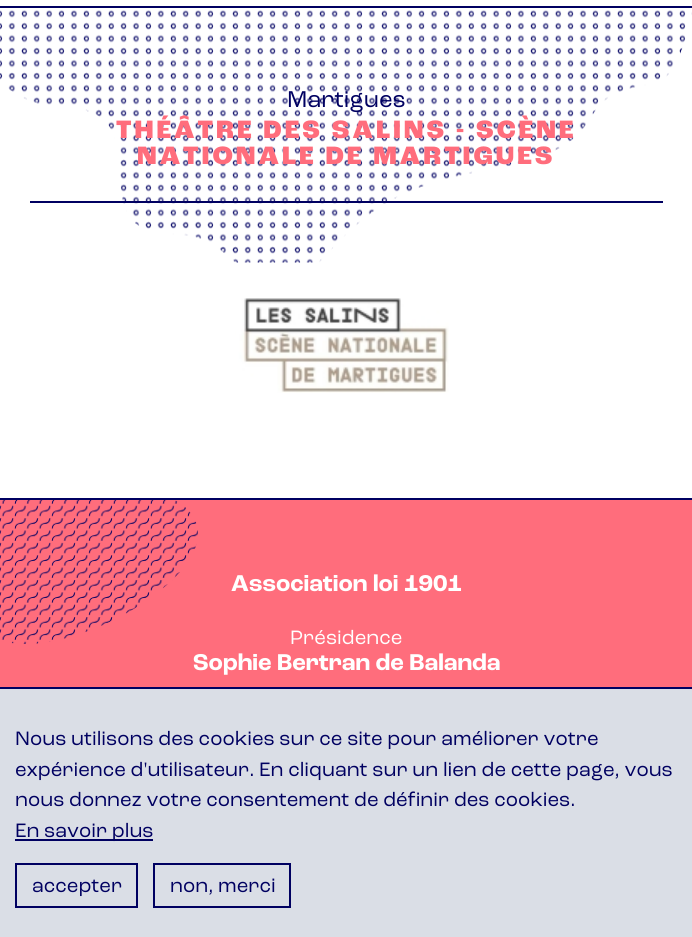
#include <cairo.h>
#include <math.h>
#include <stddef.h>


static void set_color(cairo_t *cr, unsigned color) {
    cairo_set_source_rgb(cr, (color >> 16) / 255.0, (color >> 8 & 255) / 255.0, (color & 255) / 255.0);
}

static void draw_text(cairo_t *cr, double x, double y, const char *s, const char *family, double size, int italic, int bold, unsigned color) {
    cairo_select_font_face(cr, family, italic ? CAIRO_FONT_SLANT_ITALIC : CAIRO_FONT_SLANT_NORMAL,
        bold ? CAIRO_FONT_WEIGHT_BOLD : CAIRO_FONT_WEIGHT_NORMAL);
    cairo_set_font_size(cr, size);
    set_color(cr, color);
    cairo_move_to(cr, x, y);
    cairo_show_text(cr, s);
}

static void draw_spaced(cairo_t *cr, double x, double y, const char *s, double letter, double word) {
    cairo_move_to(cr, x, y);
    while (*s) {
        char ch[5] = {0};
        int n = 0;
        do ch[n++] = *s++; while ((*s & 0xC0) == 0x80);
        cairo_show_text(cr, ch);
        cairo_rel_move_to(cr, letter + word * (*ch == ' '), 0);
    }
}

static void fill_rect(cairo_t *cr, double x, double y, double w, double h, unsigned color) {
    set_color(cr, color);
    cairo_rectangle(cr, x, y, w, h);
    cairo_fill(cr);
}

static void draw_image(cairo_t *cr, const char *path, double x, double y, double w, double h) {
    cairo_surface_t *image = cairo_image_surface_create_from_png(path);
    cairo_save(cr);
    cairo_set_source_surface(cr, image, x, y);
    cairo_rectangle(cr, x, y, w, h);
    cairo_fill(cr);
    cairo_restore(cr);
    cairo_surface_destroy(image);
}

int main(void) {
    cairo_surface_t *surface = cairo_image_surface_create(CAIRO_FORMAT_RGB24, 692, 937);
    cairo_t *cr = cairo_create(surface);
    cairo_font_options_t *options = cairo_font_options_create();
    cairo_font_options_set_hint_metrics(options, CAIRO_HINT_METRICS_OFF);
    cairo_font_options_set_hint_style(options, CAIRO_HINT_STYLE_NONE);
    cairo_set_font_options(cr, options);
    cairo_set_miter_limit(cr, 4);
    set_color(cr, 0xFFFFFF);
    cairo_paint(cr);
    fill_rect(cr, 0, 6, 692, 2, 0x000061);
    draw_image(cr, "assets/img1.png", 0, 10, 692, 253);
    fill_rect(cr, 30, 201, 633, 2, 0x000061);
    draw_text(cr, 287, 107, "Martigues", "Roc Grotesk", 24, 0, 0, 0x000061);
    cairo_select_font_face(cr, "Roc Grotesk ExtraBold", CAIRO_FONT_SLANT_NORMAL, CAIRO_FONT_WEIGHT_NORMAL);
    cairo_set_font_size(cr, 26.4);
    set_color(cr, 0xFF6D7C);
    draw_spaced(cr, 116, 138, "THÉÂTRE DES SALINS - SCÈNE", 3, 0);
    draw_spaced(cr, 137, 164, "NATIONALE DE MARTIGUES", 3, 0);
    draw_image(cr, "assets/img2.png", 235, 262, 214, 131);
    fill_rect(cr, 0, 500, 692, 187, 0xFF6D7C);
    fill_rect(cr, 0, 498, 692, 2, 0x000061);
    draw_image(cr, "assets/img3.png", 0, 500, 198, 144);
    draw_text(cr, 231, 591, "Association loi 1901", "Roc Grotesk", 24, 0, 1, 0xFFFFFF);
    draw_text(cr, 290, 644, "Présidence", "Roc Grotesk", 20.4, 0, 0, 0xFFFFFF);
    draw_text(cr, 193, 670, "Sophie Bertran de Balanda", "Roc Grotesk", 24, 0, 1, 0xFFFFFF);
    fill_rect(cr, 0, 689, 692, 248, 0xDADEE6);
    fill_rect(cr, 0, 687, 692, 2, 0x000061);
    draw_text(cr, 15, 745, "Nous utilisons des cookies sur ce site pour améliorer votre", "Roc Grotesk", 20.4, 0, 0, 0x000061);
    draw_text(cr, 15, 776, "expérience d'utilisateur. En cliquant sur un lien de cette page, vous", "Roc Grotesk", 20.4, 0, 0, 0x000061);
    draw_text(cr, 15, 806, "nous donnez votre consentement de définir des cookies.", "Roc Grotesk", 20.4, 0, 0, 0x000061);
    fill_rect(cr, 15, 839, 138, 2, 0x000061);
    draw_text(cr, 15, 837, "En savoir plus", "Roc Grotesk", 20.4, 0, 0, 0x000061);
    cairo_rectangle(cr, 16, 864, 121, 43);
    cairo_stroke(cr);
    draw_text(cr, 32, 892, "accepter", "Roc Grotesk", 20.4, 0, 0, 0x000061);
    cairo_rectangle(cr, 154, 864, 136, 43);
    cairo_stroke(cr);
    draw_text(cr, 170, 892, "non, merci", "Roc Grotesk", 20.4, 0, 0, 0x000061);
    cairo_surface_write_to_png(surface, "output.png");
    cairo_font_options_destroy(options);
    cairo_destroy(cr);
    cairo_surface_destroy(surface);
    return 0;
}
